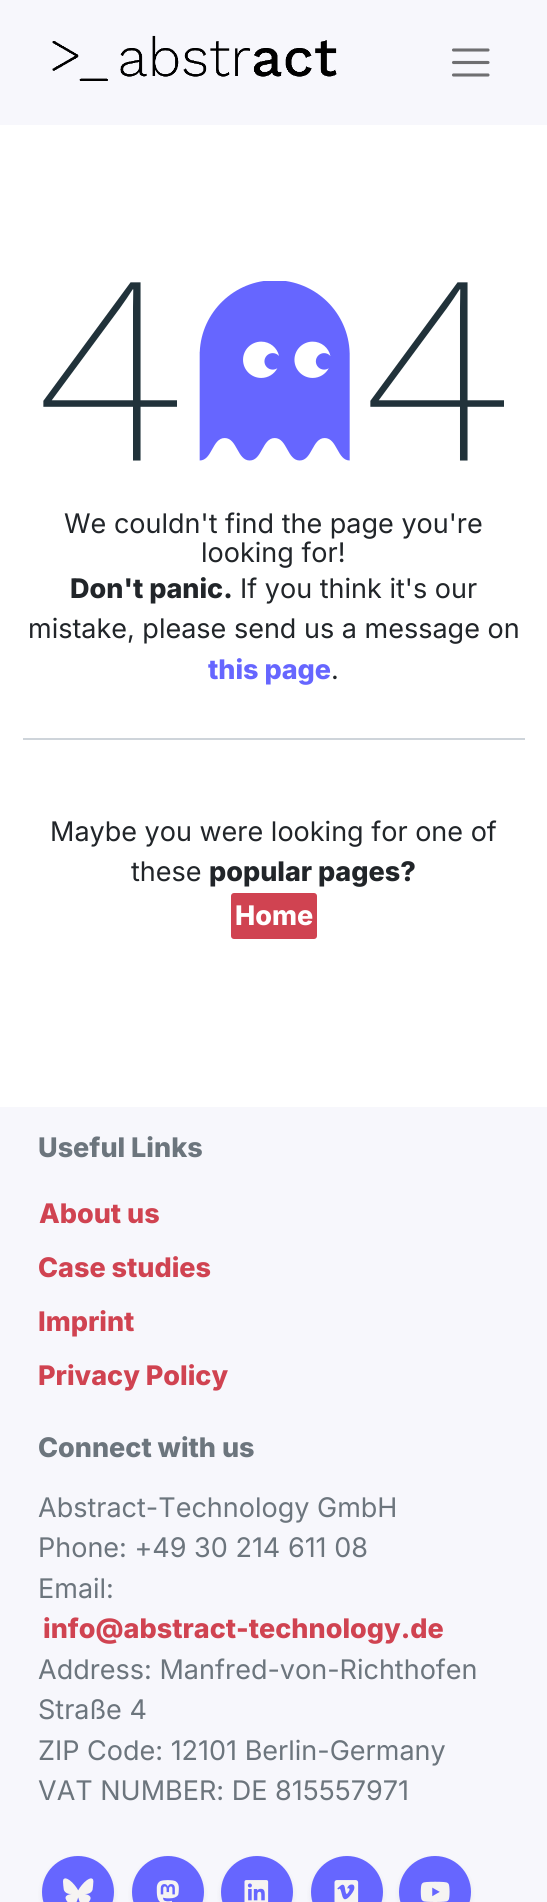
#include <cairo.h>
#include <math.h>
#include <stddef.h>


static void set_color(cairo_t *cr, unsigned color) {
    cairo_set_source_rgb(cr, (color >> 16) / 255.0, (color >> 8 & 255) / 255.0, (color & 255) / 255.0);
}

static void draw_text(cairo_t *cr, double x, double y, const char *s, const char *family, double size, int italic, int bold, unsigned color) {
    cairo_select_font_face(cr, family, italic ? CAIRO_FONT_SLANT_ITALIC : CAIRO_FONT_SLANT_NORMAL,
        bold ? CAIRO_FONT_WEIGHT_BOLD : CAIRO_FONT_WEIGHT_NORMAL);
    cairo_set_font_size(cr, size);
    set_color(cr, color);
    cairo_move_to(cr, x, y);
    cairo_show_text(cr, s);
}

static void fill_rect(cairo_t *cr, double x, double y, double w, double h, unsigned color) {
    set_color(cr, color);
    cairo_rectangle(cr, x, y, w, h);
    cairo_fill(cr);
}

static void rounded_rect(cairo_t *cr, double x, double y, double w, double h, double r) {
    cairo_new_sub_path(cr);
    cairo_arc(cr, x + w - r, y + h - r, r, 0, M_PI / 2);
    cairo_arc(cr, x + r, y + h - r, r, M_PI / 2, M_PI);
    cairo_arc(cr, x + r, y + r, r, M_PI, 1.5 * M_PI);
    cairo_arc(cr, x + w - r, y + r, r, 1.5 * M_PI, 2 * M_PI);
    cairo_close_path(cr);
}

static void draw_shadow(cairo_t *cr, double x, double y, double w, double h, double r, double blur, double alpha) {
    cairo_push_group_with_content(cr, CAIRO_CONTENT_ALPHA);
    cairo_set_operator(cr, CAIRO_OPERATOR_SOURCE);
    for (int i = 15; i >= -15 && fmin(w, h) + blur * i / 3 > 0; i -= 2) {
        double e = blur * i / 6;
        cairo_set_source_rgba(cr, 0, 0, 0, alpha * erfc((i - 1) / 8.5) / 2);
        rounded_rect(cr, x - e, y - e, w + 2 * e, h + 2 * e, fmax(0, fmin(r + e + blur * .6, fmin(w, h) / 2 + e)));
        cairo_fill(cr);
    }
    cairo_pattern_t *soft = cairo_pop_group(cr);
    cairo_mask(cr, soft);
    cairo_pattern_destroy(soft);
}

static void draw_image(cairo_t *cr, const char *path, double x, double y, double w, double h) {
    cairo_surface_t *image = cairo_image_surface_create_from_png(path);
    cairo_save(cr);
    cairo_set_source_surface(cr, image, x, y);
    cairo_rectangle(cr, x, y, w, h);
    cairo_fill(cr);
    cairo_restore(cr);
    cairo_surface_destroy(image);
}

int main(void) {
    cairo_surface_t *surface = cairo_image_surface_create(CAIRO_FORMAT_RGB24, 547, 1902);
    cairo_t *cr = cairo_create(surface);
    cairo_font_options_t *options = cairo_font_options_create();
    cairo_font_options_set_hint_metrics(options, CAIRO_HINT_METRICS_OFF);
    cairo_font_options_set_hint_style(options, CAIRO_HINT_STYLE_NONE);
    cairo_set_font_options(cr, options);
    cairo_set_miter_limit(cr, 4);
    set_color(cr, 0xFFFFFF);
    cairo_paint(cr);
    fill_rect(cr, 0, 0, 547, 125, 0xF7F7FC);
    draw_image(cr, "assets/img1.png", 52, 35, 285, 46);
    cairo_new_path(cr);
    cairo_move_to(cr, 453.5, 50);
    cairo_line_to(cr, 488, 50);
    cairo_move_to(cr, 453.5, 62.5);
    cairo_line_to(cr, 488, 62.5);
    cairo_move_to(cr, 453.5, 75);
    cairo_line_to(cr, 488, 75);
    set_color(cr, 0x6F6F71);
    cairo_set_line_width(cr, 3.1);
    cairo_set_line_cap(cr, CAIRO_LINE_CAP_ROUND);
    cairo_stroke(cr);
    draw_image(cr, "assets/img2.png", 43, 281, 461, 180);
    draw_text(cr, 64, 533, "We couldn't find the page you're", "Inter", 27, 0, 0, 0x212529);
    draw_text(cr, 201, 562, "looking for!", "Inter", 27, 0, 0, 0x212529);
    draw_text(cr, 70, 598, "Don't panic.", "Inter ExtraBold", 27, 0, 0, 0x212529);
    draw_text(cr, 240, 598, "If you think it's our", "Inter", 27, 0, 0, 0x212529);
    draw_text(cr, 28, 638, "mistake, please send us a message on", "Inter", 27, 0, 0, 0x212529);
    draw_text(cr, 208, 679, "this page", "Inter ExtraBold", 27, 0, 0, 0x6666FF);
    draw_text(cr, 331, 679, ".", "Inter", 27, 0, 0, 0x212529);
    fill_rect(cr, 23, 738, 502, 2, 0xCED4DA);
    draw_text(cr, 50, 841, "Maybe you were looking for one of", "Inter", 27, 0, 0, 0x212529);
    draw_text(cr, 131, 881, "these", "Inter", 27, 0, 0, 0x212529);
    draw_text(cr, 209, 881, "popular pages?", "Inter ExtraBold", 27, 0, 0, 0x212529);
    set_color(cr, 0xD04351);
    rounded_rect(cr, 232.5, 894.5, 83, 43, 1.5);
    cairo_fill_preserve(cr);
    cairo_set_line_width(cr, 3);
    cairo_set_line_cap(cr, CAIRO_LINE_CAP_BUTT);
    cairo_stroke(cr);
    draw_text(cr, 235, 925, "Home", "Inter ExtraBold", 27, 0, 0, 0xFFFFFF);
    fill_rect(cr, 0, 1107, 547, 795, 0xF7F7FC);
    draw_text(cr, 38, 1157, "Useful Links", "Inter ExtraBold", 27, 0, 0, 0x6C757D);
    draw_text(cr, 39, 1223, "About us", "Inter ExtraBold", 27, 0, 0, 0xD04351);
    draw_text(cr, 38, 1277, "Case studies", "Inter ExtraBold", 27, 0, 0, 0xD04351);
    draw_text(cr, 38, 1331, "Imprint", "Inter ExtraBold", 27, 0, 0, 0xD04351);
    draw_text(cr, 38, 1385, "Privacy Policy", "Inter ExtraBold", 27, 0, 0, 0xD04351);
    draw_text(cr, 38, 1457, "Connect with us", "Inter ExtraBold", 27, 0, 0, 0x6C757D);
    draw_text(cr, 38, 1517, "Abstract-Technology GmbH", "Inter", 27, 0, 0, 0x6C757D);
    draw_text(cr, 38, 1557, "Phone: +49 30 214 611 08", "Inter", 27, 0, 0, 0x6C757D);
    draw_text(cr, 38, 1598, "Email:", "Inter", 27, 0, 0, 0x6C757D);
    draw_text(cr, 43, 1638, "info@abstract-technology.de", "Inter ExtraBold", 27, 0, 0, 0xD04351);
    draw_text(cr, 38, 1679, "Address: Manfred-von-Richthofen", "Inter", 27, 0, 0, 0x6C757D);
    draw_text(cr, 38, 1719, "Straße 4", "Inter", 27, 0, 0, 0x6C757D);
    draw_text(cr, 38, 1760, "ZIP Code: 12101 Berlin-Germany", "Inter", 27, 0, 0, 0x6C757D);
    draw_text(cr, 38, 1800, "VAT NUMBER: DE 815557971", "Inter", 27, 0, 0, 0x6C757D);
    set_color(cr, 0x000000);
    draw_shadow(cr, 42, 1859, 72, 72, 36, 3, 0.07);
    set_color(cr, 0x6666FF);
    cairo_arc(cr, 78, 1892, 36, 0, 2 * M_PI);
    cairo_fill(cr);
    draw_image(cr, "assets/img3.png", 63, 1878, 31, 24);
    set_color(cr, 0x000000);
    draw_shadow(cr, 132, 1859, 72, 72, 36, 3, 0.07);
    set_color(cr, 0x6666FF);
    cairo_arc(cr, 168, 1892, 36, 0, 2 * M_PI);
    cairo_fill(cr);
    draw_image(cr, "assets/img4.png", 156, 1880, 23, 22);
    set_color(cr, 0x000000);
    draw_shadow(cr, 221, 1859, 72, 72, 36, 3, 0.07);
    set_color(cr, 0x6666FF);
    cairo_arc(cr, 257, 1892, 36, 0, 2 * M_PI);
    cairo_fill(cr);
    draw_image(cr, "assets/img5.png", 244, 1880, 25, 22);
    set_color(cr, 0x000000);
    draw_shadow(cr, 311, 1859, 72, 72, 36, 3, 0.07);
    set_color(cr, 0x6666FF);
    cairo_arc(cr, 347, 1892, 36, 0, 2 * M_PI);
    cairo_fill(cr);
    draw_image(cr, "assets/img6.png", 334, 1880, 25, 22);
    set_color(cr, 0x000000);
    draw_shadow(cr, 399, 1859, 72, 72, 36, 3, 0.07);
    set_color(cr, 0x6666FF);
    cairo_arc(cr, 435, 1892, 36, 0, 2 * M_PI);
    cairo_fill(cr);
    draw_image(cr, "assets/img7.png", 420, 1881, 30, 21);
    cairo_surface_write_to_png(surface, "output.png");
    cairo_font_options_destroy(options);
    cairo_destroy(cr);
    cairo_surface_destroy(surface);
    return 0;
}
